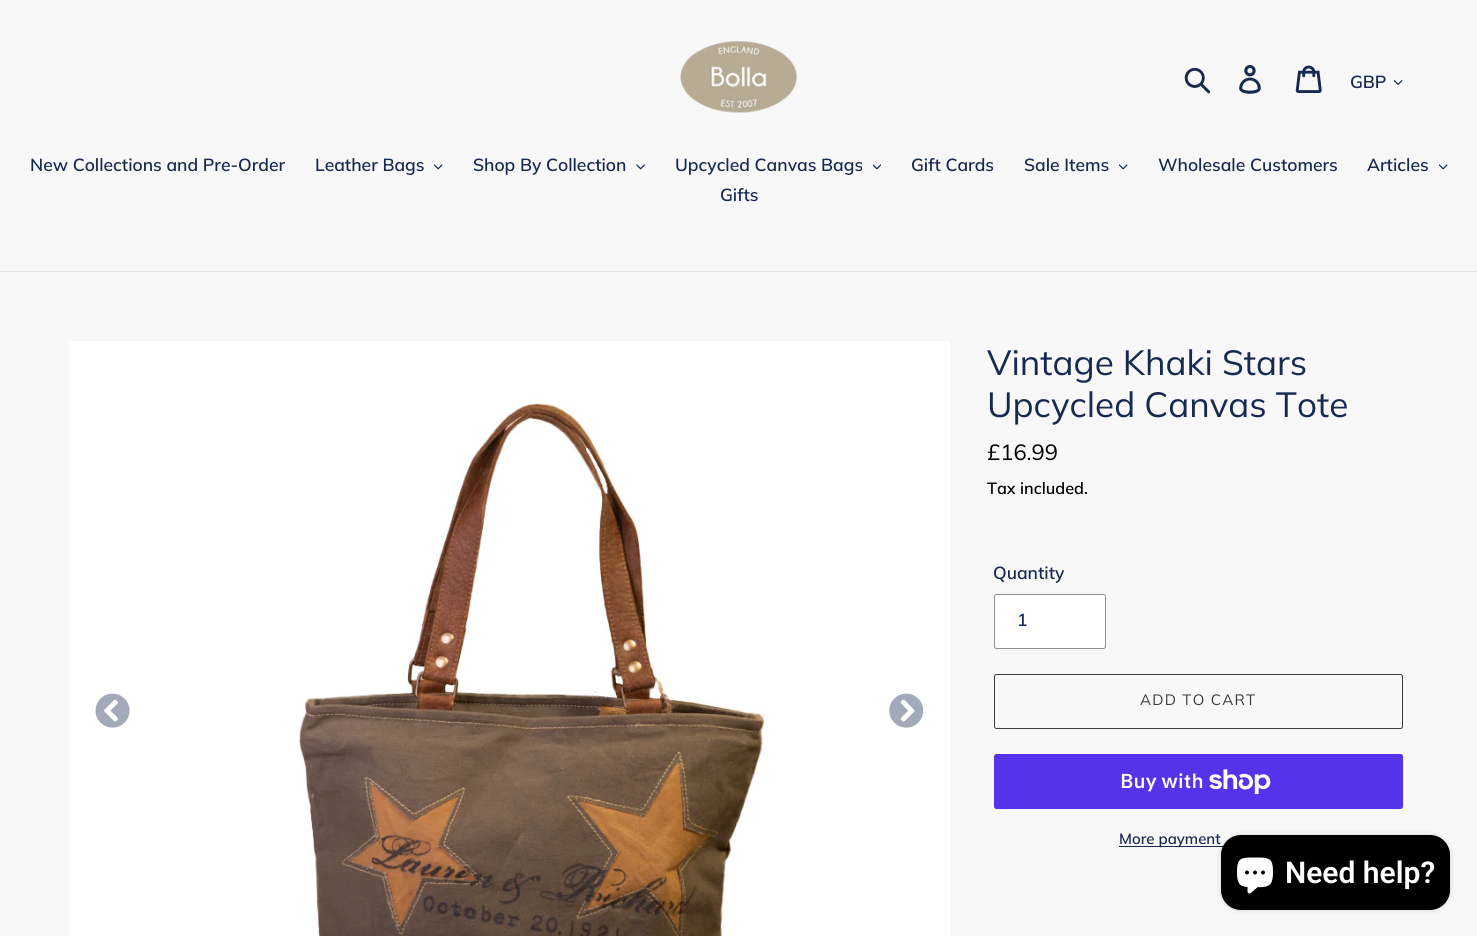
#include <cairo.h>
#include <math.h>
#include <stddef.h>


static void set_color(cairo_t *cr, unsigned color) {
    cairo_set_source_rgb(cr, (color >> 16) / 255.0, (color >> 8 & 255) / 255.0, (color & 255) / 255.0);
}

static void draw_text(cairo_t *cr, double x, double y, const char *s, const char *family, double size, int italic, int bold, unsigned color) {
    cairo_select_font_face(cr, family, italic ? CAIRO_FONT_SLANT_ITALIC : CAIRO_FONT_SLANT_NORMAL,
        bold ? CAIRO_FONT_WEIGHT_BOLD : CAIRO_FONT_WEIGHT_NORMAL);
    cairo_set_font_size(cr, size);
    set_color(cr, color);
    cairo_move_to(cr, x, y);
    cairo_show_text(cr, s);
}

static void draw_spaced(cairo_t *cr, double x, double y, const char *s, double letter, double word) {
    cairo_move_to(cr, x, y);
    while (*s) {
        char ch[5] = {0};
        int n = 0;
        do ch[n++] = *s++; while ((*s & 0xC0) == 0x80);
        cairo_show_text(cr, ch);
        cairo_rel_move_to(cr, letter + word * (*ch == ' '), 0);
    }
}

static void fill_rect(cairo_t *cr, double x, double y, double w, double h, unsigned color) {
    set_color(cr, color);
    cairo_rectangle(cr, x, y, w, h);
    cairo_fill(cr);
}

static void rounded_rect(cairo_t *cr, double x, double y, double w, double h, double r) {
    cairo_new_sub_path(cr);
    cairo_arc(cr, x + w - r, y + h - r, r, 0, M_PI / 2);
    cairo_arc(cr, x + r, y + h - r, r, M_PI / 2, M_PI);
    cairo_arc(cr, x + r, y + r, r, M_PI, 1.5 * M_PI);
    cairo_arc(cr, x + w - r, y + r, r, 1.5 * M_PI, 2 * M_PI);
    cairo_close_path(cr);
}

static void draw_shadow(cairo_t *cr, double x, double y, double w, double h, double r, double blur, double alpha) {
    cairo_push_group_with_content(cr, CAIRO_CONTENT_ALPHA);
    cairo_set_operator(cr, CAIRO_OPERATOR_SOURCE);
    for (int i = 15; i >= -15 && fmin(w, h) + blur * i / 3 > 0; i -= 2) {
        double e = blur * i / 6;
        cairo_set_source_rgba(cr, 0, 0, 0, alpha * erfc((i - 1) / 8.5) / 2);
        rounded_rect(cr, x - e, y - e, w + 2 * e, h + 2 * e, fmax(0, fmin(r + e + blur * .6, fmin(w, h) / 2 + e)));
        cairo_fill(cr);
    }
    cairo_pattern_t *soft = cairo_pop_group(cr);
    cairo_mask(cr, soft);
    cairo_pattern_destroy(soft);
}

static void draw_image(cairo_t *cr, const char *path, double x, double y, double w, double h) {
    cairo_surface_t *image = cairo_image_surface_create_from_png(path);
    cairo_save(cr);
    cairo_set_source_surface(cr, image, x, y);
    cairo_rectangle(cr, x, y, w, h);
    cairo_fill(cr);
    cairo_restore(cr);
    cairo_surface_destroy(image);
}

int main(void) {
    cairo_surface_t *surface = cairo_image_surface_create(CAIRO_FORMAT_RGB24, 1477, 936);
    cairo_t *cr = cairo_create(surface);
    cairo_font_options_t *options = cairo_font_options_create();
    cairo_font_options_set_hint_metrics(options, CAIRO_HINT_METRICS_OFF);
    cairo_font_options_set_hint_style(options, CAIRO_HINT_STYLE_NONE);
    cairo_set_font_options(cr, options);
    cairo_set_miter_limit(cr, 4);
    set_color(cr, 0xF8F8F8);
    cairo_paint(cr);
    draw_image(cr, "assets/img1.png", 680, 41, 118, 72);
    draw_image(cr, "assets/img2.png", 1184, 67, 27, 27);
    draw_image(cr, "assets/img3.png", 1239, 65, 22, 29);
    draw_image(cr, "assets/img4.png", 1295, 65, 27, 28);
    draw_text(cr, 1350, 88, "GBP", "Muli SemiBold", 17.5, 0, 0, 0x162950);
    draw_image(cr, "assets/img5.png", 1394, 80, 9, 5);
    fill_rect(cr, 0, 271, 1477, 1, 0xE4E4E4);
    draw_text(cr, 30, 171, "New Collections and Pre-Order", "Muli SemiBold", 17.5, 0, 0, 0x162950);
    draw_text(cr, 315, 171, "Leather Bags", "Muli SemiBold", 17.5, 0, 0, 0x162950);
    draw_image(cr, "assets/img6.png", 434, 164, 9, 6);
    draw_text(cr, 473, 171, "Shop By Collection", "Muli SemiBold", 17.5, 0, 0, 0x162950);
    draw_image(cr, "assets/img7.png", 636, 164, 9, 6);
    draw_text(cr, 675, 171, "Upcycled Canvas Bags", "Muli SemiBold", 17.5, 0, 0, 0x162950);
    draw_image(cr, "assets/img8.png", 873, 164, 8, 6);
    draw_text(cr, 911, 171, "Gift Cards", "Muli SemiBold", 17.5, 0, 0, 0x162950);
    draw_text(cr, 1024, 171, "Sale Items", "Muli SemiBold", 17.5, 0, 0, 0x162950);
    draw_image(cr, "assets/img6.png", 1119, 164, 9, 6);
    draw_text(cr, 1158, 171, "Wholesale Customers", "Muli SemiBold", 17.5, 0, 0, 0x162950);
    draw_text(cr, 1367, 171, "Articles", "Muli SemiBold", 17.5, 0, 0, 0x162950);
    draw_image(cr, "assets/img6.png", 1439, 164, 9, 6);
    draw_text(cr, 720, 201, "Gifts", "Muli SemiBold", 17.5, 0, 0, 0x162950);
    draw_image(cr, "assets/img9.png", 69, 341, 881, 595);
    draw_image(cr, "assets/img10.png", 95, 693, 35, 35);
    draw_image(cr, "assets/img11.png", 889, 693, 35, 35);
    draw_text(cr, 987, 375, "Vintage Khaki Stars", "Muli", 35, 0, 0, 0x162950);
    draw_text(cr, 987, 417, "Upcycled Canvas Tote", "Muli", 35, 0, 0, 0x162950);
    draw_text(cr, 987, 460, "£16.99", "Muli", 22, 0, 0, 0x000000);
    draw_text(cr, 987, 494, "Tax included.", "Muli SemiBold", 16.25, 0, 0, 0x000000);
    draw_text(cr, 993, 579, "Quantity", "Muli SemiBold", 17.5, 0, 0, 0x162950);
    set_color(cr, 0xFFFFFF);
    rounded_rect(cr, 994.5, 594.5, 111, 54, 2);
    cairo_fill_preserve(cr);
    set_color(cr, 0x909090);
    cairo_set_line_width(cr, 1);
    cairo_stroke(cr);
    draw_text(cr, 1017, 626, "1", "Muli SemiBold", 17.5, 0, 0, 0x162950);
    rounded_rect(cr, 994.5, 674.5, 408, 54, 2);
    set_color(cr, 0x3D3D3D);
    cairo_stroke(cr);
    cairo_select_font_face(cr, "Muli", CAIRO_FONT_SLANT_NORMAL, CAIRO_FONT_WEIGHT_NORMAL);
    cairo_set_font_size(cr, 15);
    draw_spaced(cr, 1140, 705, "ADD TO CART", 1.25, 0);
    set_color(cr, 0x5433EB);
    rounded_rect(cr, 994, 754, 409, 55, 2.5);
    cairo_fill(cr);
    draw_text(cr, 1120, 788, "Buy with", "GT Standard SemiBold", 20, 0, 0, 0xFFFFFF);
    draw_image(cr, "assets/img12.png", 1209, 769, 62, 25);
    fill_rect(cr, 1119, 846, 105, 1, 0x162950);
    draw_text(cr, 1119, 844, "More payment", "Muli SemiBold", 15, 0, 0, 0x162950);
    set_color(cr, 0x000000);
    draw_shadow(cr, 1221, 835, 229, 75, 20, 3, 0.15);
    set_color(cr, 0x000000);
    rounded_rect(cr, 1221, 835, 229, 75, 20);
    cairo_fill(cr);
    draw_image(cr, "assets/img13.png", 1237, 857, 36, 37);
    draw_text(cr, 1285, 883, "Need help?", "Roboto SemiBold", 30, 0, 0, 0xFFFFFF);
    cairo_surface_write_to_png(surface, "output.png");
    cairo_font_options_destroy(options);
    cairo_destroy(cr);
    cairo_surface_destroy(surface);
    return 0;
}
